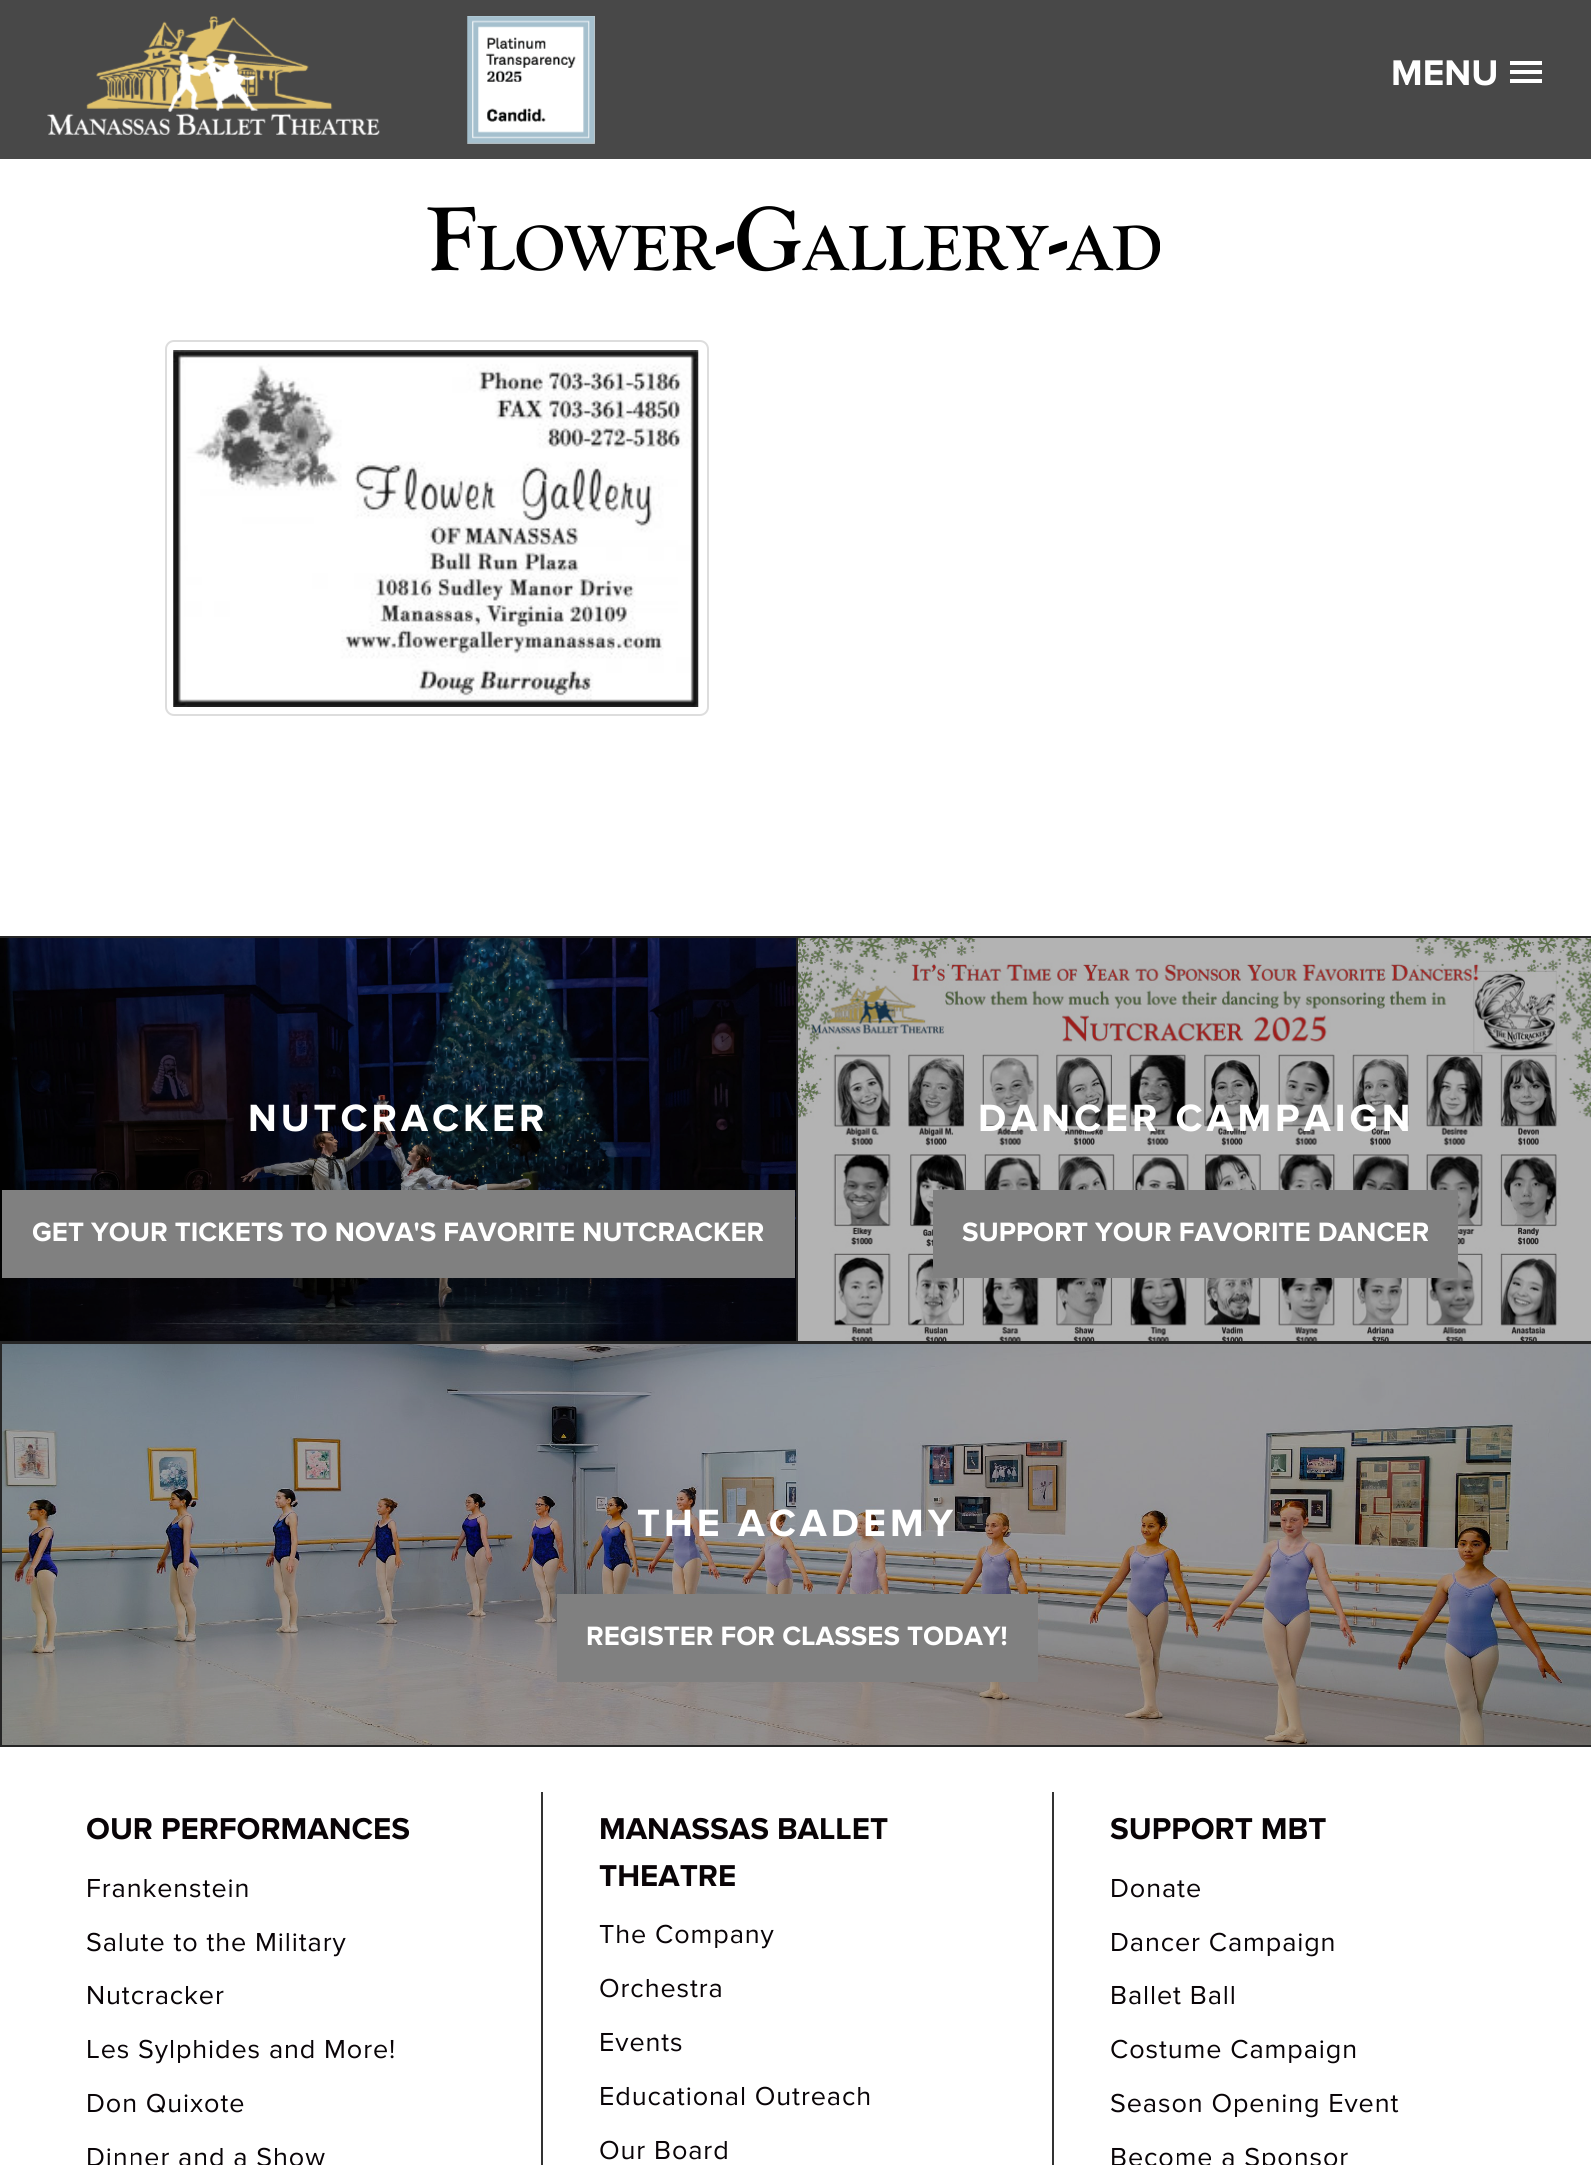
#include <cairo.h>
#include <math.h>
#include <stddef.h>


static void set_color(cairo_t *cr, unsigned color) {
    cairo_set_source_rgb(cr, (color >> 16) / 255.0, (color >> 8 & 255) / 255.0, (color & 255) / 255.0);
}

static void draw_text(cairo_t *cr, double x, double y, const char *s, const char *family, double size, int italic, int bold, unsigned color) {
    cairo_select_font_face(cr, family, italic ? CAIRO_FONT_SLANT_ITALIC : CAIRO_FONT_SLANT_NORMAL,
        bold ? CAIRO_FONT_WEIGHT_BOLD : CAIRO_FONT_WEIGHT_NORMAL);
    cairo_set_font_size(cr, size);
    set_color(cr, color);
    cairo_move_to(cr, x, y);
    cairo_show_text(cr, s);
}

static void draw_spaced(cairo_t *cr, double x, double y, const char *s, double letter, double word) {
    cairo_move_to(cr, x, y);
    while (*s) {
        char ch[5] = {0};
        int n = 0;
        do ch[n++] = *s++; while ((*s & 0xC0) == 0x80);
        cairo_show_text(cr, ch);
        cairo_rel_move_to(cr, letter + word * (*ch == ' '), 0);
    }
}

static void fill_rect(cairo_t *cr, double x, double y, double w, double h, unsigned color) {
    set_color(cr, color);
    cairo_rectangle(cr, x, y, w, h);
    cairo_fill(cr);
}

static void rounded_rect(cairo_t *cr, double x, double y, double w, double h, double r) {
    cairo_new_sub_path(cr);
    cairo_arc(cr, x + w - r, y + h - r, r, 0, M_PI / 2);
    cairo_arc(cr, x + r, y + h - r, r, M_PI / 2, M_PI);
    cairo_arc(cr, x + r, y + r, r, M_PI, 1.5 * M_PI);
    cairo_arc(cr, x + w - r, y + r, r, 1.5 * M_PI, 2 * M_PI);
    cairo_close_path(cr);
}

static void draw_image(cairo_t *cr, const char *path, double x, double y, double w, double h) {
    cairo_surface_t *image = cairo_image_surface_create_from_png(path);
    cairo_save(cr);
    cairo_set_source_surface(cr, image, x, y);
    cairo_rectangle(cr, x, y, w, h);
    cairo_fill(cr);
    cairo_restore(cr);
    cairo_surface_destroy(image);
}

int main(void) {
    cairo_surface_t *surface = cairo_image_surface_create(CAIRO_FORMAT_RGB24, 1591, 2165);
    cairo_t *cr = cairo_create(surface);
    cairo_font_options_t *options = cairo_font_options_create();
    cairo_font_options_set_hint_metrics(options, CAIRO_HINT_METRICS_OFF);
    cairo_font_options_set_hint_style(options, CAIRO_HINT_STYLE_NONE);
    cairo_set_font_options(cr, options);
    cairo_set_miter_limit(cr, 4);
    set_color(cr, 0xFFFFFF);
    cairo_paint(cr);
    fill_rect(cr, 0, 0, 1591, 159, 0x484848);
    draw_image(cr, "assets/img1.png", 47, 16, 333, 119);
    draw_image(cr, "assets/img2.png", 467, 16, 128, 128);
    draw_text(cr, 1391, 85, "MENU", "Proxima Nova", 37, 0, 1, 0xFFFFFF);
    fill_rect(cr, 1510, 61, 32, 4, 0xFFFFFF);
    fill_rect(cr, 1510, 79, 32, 4, 0xFFFFFF);
    fill_rect(cr, 1510, 70, 32, 4, 0xFFFFFF);
    draw_text(cr, 426, 270, "F", "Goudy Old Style", 94, 0, 1, 0x000000);
    draw_text(cr, 477, 270, "LOWER", "Goudy Old Style", 66, 0, 1, 0x000000);
    draw_text(cr, 716, 270, "-G", "Goudy Old Style", 94, 0, 1, 0x000000);
    draw_text(cr, 803, 270, "ALLERY", "Goudy Old Style", 66, 0, 1, 0x000000);
    draw_text(cr, 1049, 270, "-", "Goudy Old Style", 94, 0, 1, 0x000000);
    draw_text(cr, 1067, 270, "AD", "Goudy Old Style", 66, 0, 1, 0x000000);
    rounded_rect(cr, 166, 341, 542, 374, 8);
    set_color(cr, 0xDDDDDD);
    cairo_stroke(cr);
    draw_image(cr, "assets/img3.png", 173, 350, 526, 357);
    draw_image(cr, "assets/img4.png", 0, 938, 796, 403);
    fill_rect(cr, 0, 936, 1591, 2, 0x262626);
    fill_rect(cr, 0, 1341, 1591, 3, 0x262626);
    cairo_select_font_face(cr, "Proxima Nova", CAIRO_FONT_SLANT_NORMAL, CAIRO_FONT_WEIGHT_BOLD);
    cairo_set_font_size(cr, 39.4);
    set_color(cr, 0xFFFFFF);
    draw_spaced(cr, 248, 1131, "NUTCRACKER", 4, 0);
    fill_rect(cr, 2, 1190, 793, 88, 0x808080);
    draw_text(cr, 32, 1241, "GET YOUR TICKETS TO NOVA'S FAVORITE NUTCRACKER", "Proxima Nova", 27.55, 0, 1, 0xFFFFFF);
    draw_image(cr, "assets/img5.png", 798, 938, 793, 403);
    fill_rect(cr, 796, 936, 2, 406, 0x262626);
    cairo_set_font_size(cr, 39.4);
    set_color(cr, 0xFFFFFF);
    draw_spaced(cr, 978, 1131, "DANCER CAMPAIGN", 4, 0);
    fill_rect(cr, 933, 1190, 525, 88, 0x808080);
    draw_text(cr, 962, 1241, "SUPPORT YOUR FAVORITE DANCER", "Proxima Nova", 27.55, 0, 1, 0xFFFFFF);
    draw_image(cr, "assets/img6.png", 2, 1344, 1589, 401);
    fill_rect(cr, 0, 1745, 1591, 2, 0x262626);
    fill_rect(cr, 0, 1342, 2, 405, 0x262626);
    cairo_set_font_size(cr, 39.4);
    set_color(cr, 0xFFFFFF);
    draw_spaced(cr, 637, 1536, "THE ACADEMY", 4, 0);
    fill_rect(cr, 557, 1594, 481, 88, 0x808080);
    draw_text(cr, 586, 1645, "REGISTER FOR CLASSES TODAY!", "Proxima Nova", 27.55, 0, 1, 0xFFFFFF);
    draw_text(cr, 86, 1839, "OUR PERFORMANCES", "Proxima Nova", 31.25, 0, 1, 0x090407);
    cairo_select_font_face(cr, "Proxima Nova", CAIRO_FONT_SLANT_NORMAL, CAIRO_FONT_WEIGHT_NORMAL);
    cairo_set_font_size(cr, 27);
    draw_spaced(cr, 86, 1897, "Frankenstein", 0.9, 0);
    draw_spaced(cr, 86, 1951, "Salute to the Military", 0.9, 0);
    draw_spaced(cr, 86, 2004, "Nutcracker", 0.9, 0);
    draw_spaced(cr, 86, 2058, "Les Sylphides and More!", 0.9, 0);
    draw_spaced(cr, 86, 2112, "Don Quixote", 0.9, 0);
    draw_spaced(cr, 86, 2166, "Dinner and a Show", 0.9, 0);
    fill_rect(cr, 541, 1792, 2, 373, 0x333333);
    draw_text(cr, 599, 1839, "MANASSAS BALLET", "Proxima Nova", 31.25, 0, 1, 0x090407);
    draw_text(cr, 599, 1886, "THEATRE", "Proxima Nova", 31.25, 0, 1, 0x090407);
    cairo_select_font_face(cr, "Proxima Nova", CAIRO_FONT_SLANT_NORMAL, CAIRO_FONT_WEIGHT_NORMAL);
    cairo_set_font_size(cr, 27);
    draw_spaced(cr, 599, 1943, "The Company", 0.9, 0);
    draw_spaced(cr, 599, 1997, "Orchestra", 0.9, 0);
    draw_spaced(cr, 599, 2051, "Events", 0.9, 0);
    draw_spaced(cr, 599, 2105, "Educational Outreach", 0.9, 0);
    draw_spaced(cr, 599, 2159, "Our Board", 0.9, 0);
    fill_rect(cr, 1052, 1792, 2, 373, 0x333333);
    draw_text(cr, 1110, 1839, "SUPPORT MBT", "Proxima Nova", 31.25, 0, 1, 0x090407);
    cairo_select_font_face(cr, "Proxima Nova", CAIRO_FONT_SLANT_NORMAL, CAIRO_FONT_WEIGHT_NORMAL);
    cairo_set_font_size(cr, 27);
    draw_spaced(cr, 1110, 1897, "Donate", 0.9, 0);
    draw_spaced(cr, 1110, 1951, "Dancer Campaign", 0.9, 0);
    draw_spaced(cr, 1110, 2004, "Ballet Ball", 0.9, 0);
    draw_spaced(cr, 1110, 2058, "Costume Campaign", 0.9, 0);
    draw_spaced(cr, 1110, 2112, "Season Opening Event", 0.9, 0);
    draw_spaced(cr, 1110, 2166, "Become a Sponsor", 0.9, 0);
    cairo_surface_write_to_png(surface, "output.png");
    cairo_font_options_destroy(options);
    cairo_destroy(cr);
    cairo_surface_destroy(surface);
    return 0;
}
